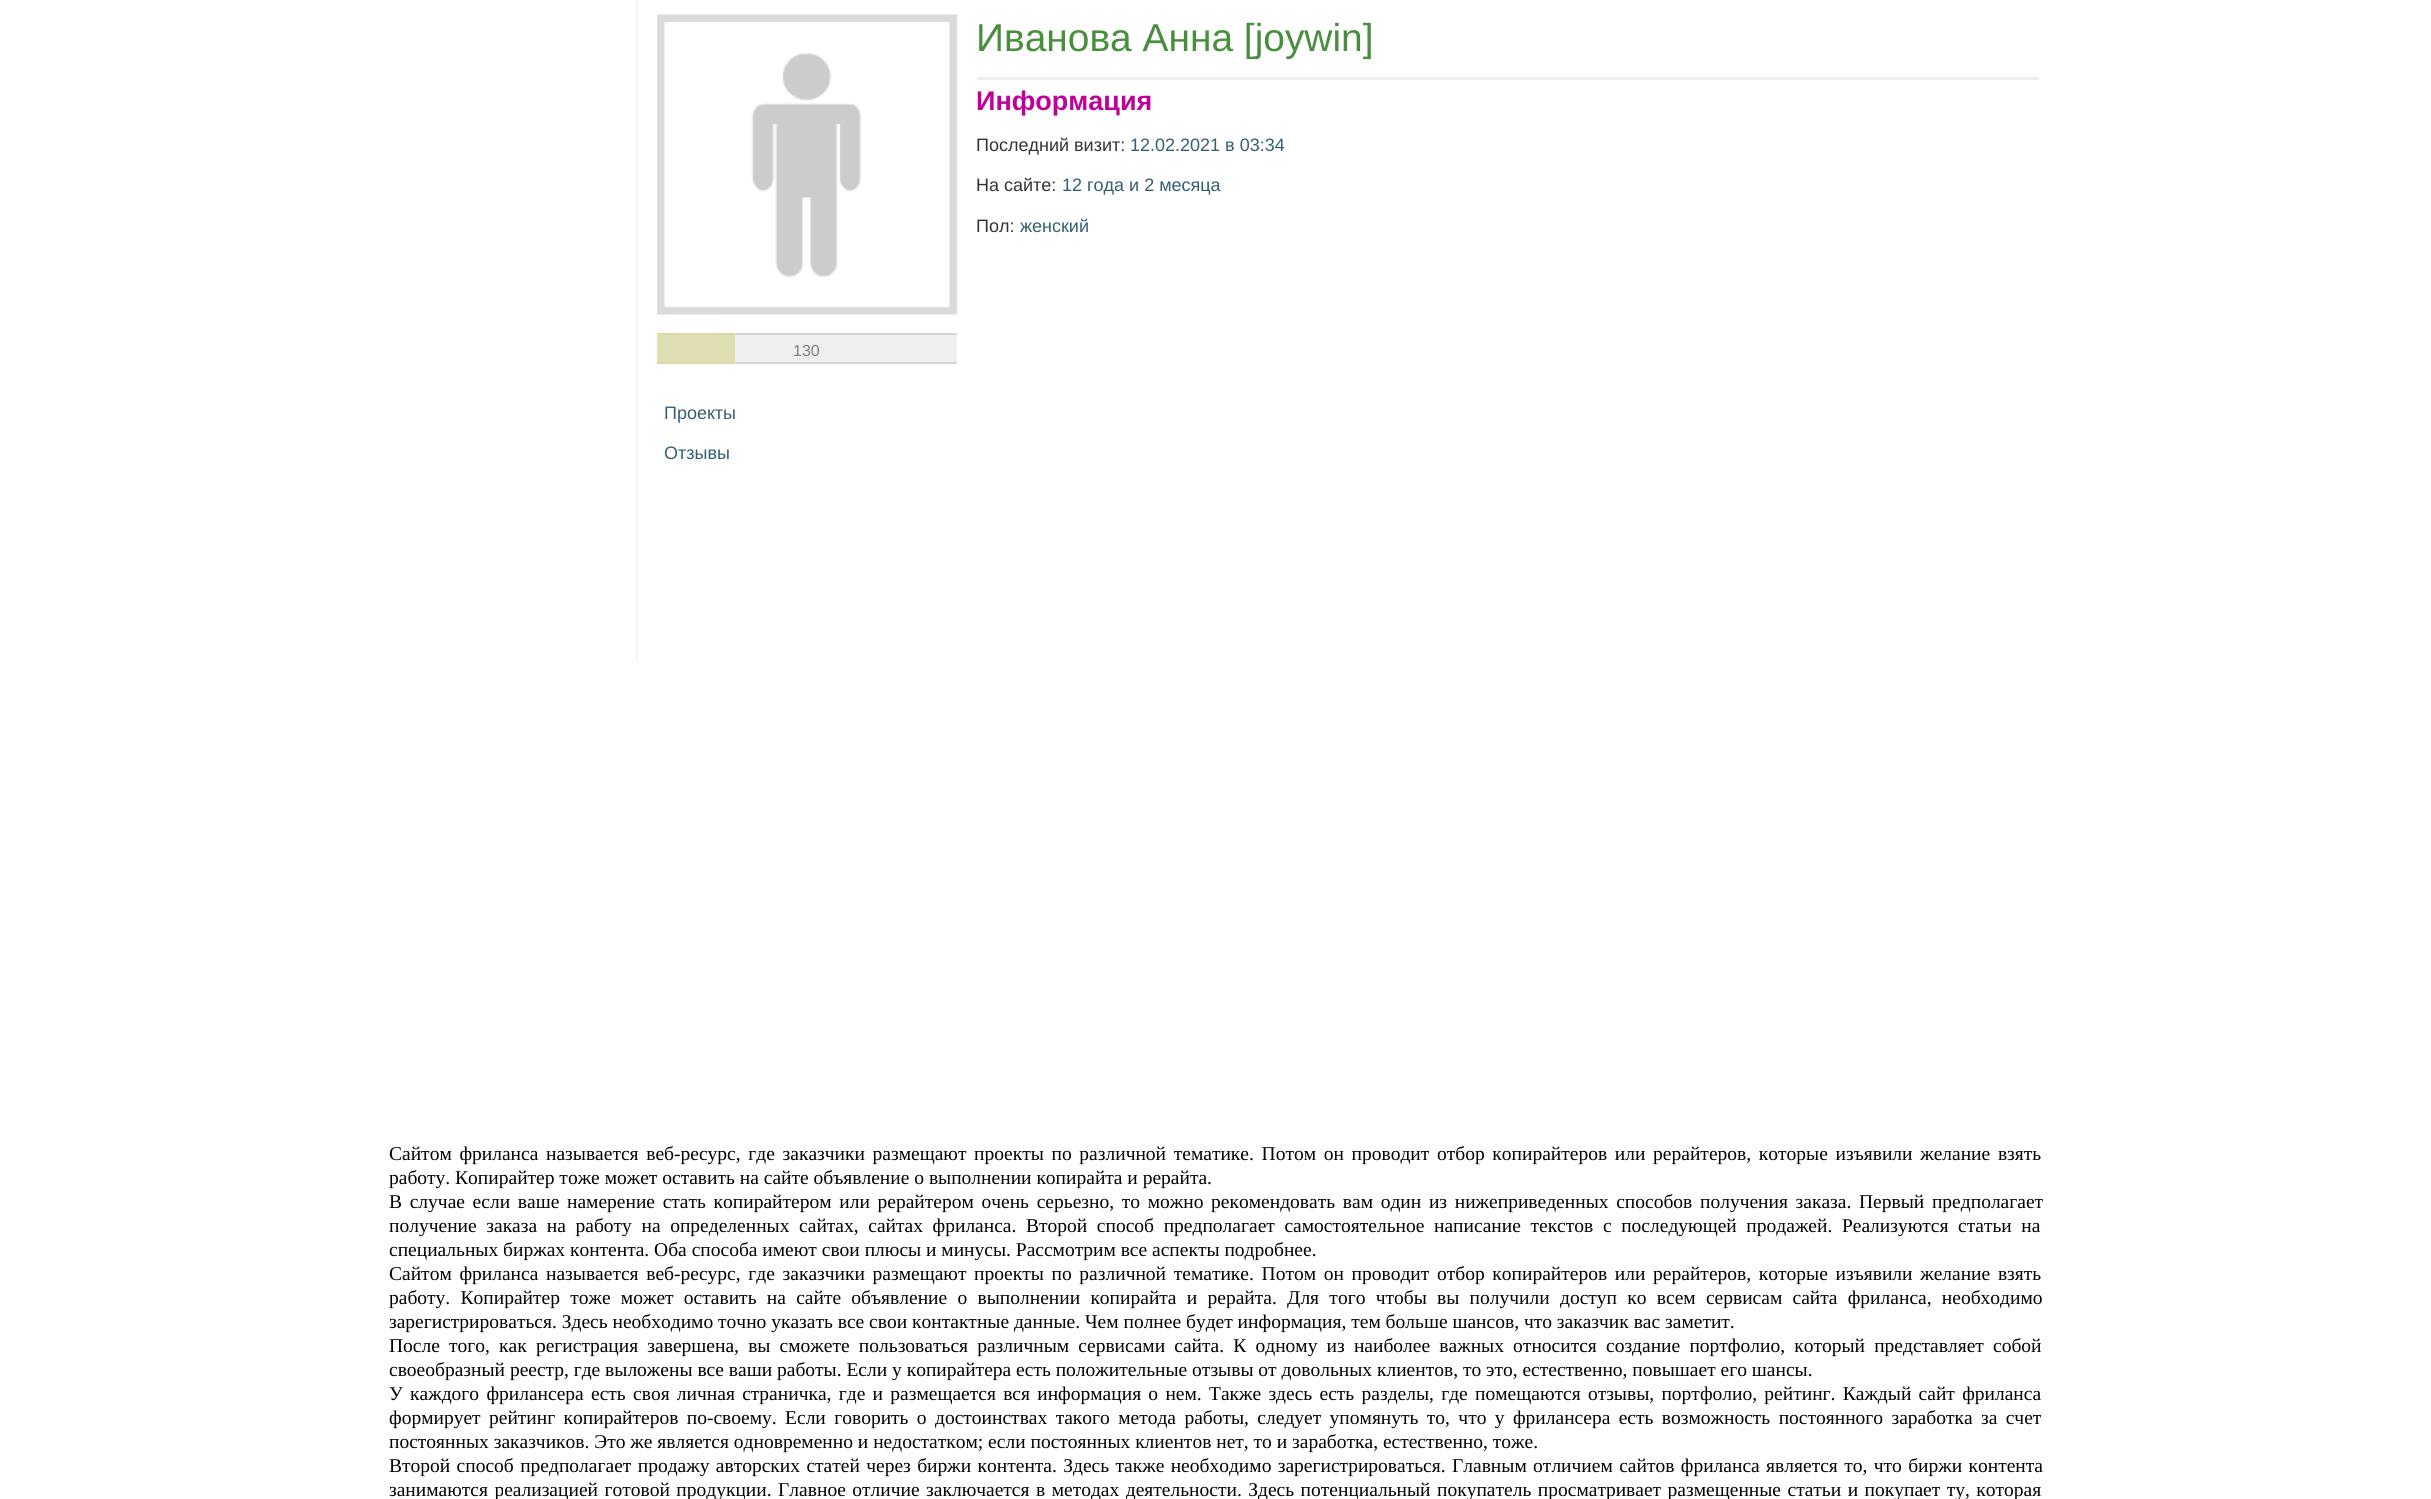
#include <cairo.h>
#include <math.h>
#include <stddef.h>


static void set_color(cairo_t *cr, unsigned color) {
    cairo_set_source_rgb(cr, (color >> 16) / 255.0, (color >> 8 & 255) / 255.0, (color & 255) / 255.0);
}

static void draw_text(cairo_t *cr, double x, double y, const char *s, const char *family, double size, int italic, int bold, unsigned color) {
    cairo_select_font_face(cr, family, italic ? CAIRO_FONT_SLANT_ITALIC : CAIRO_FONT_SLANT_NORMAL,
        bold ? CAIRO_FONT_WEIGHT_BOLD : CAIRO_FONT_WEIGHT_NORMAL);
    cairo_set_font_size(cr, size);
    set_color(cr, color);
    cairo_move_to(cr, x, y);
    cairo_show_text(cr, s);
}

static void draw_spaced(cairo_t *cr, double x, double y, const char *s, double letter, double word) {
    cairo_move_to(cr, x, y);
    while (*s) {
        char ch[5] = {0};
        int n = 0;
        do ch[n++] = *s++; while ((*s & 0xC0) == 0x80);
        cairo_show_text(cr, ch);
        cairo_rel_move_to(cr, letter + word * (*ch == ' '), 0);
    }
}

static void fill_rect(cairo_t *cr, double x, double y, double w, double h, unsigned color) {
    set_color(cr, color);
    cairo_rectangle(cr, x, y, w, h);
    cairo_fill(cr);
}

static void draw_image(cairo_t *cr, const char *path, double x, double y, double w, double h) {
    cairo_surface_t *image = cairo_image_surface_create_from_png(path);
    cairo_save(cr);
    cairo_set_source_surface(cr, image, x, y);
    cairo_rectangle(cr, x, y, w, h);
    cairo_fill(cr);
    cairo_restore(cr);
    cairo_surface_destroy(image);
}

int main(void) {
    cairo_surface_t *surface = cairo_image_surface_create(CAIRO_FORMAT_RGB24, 2431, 1499);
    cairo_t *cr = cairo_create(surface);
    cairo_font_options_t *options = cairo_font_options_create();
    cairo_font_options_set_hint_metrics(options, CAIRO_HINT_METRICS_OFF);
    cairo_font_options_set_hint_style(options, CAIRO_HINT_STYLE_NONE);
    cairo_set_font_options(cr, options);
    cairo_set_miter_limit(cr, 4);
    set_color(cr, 0xFFFFFF);
    cairo_paint(cr);
    fill_rect(cr, 636, 0, 2, 662, 0xF4F4F4);
    fill_rect(cr, 977, 77, 1062, 3, 0xEEEEEE);
    draw_text(cr, 976, 51, "Иванова Анна [joywin]", "Liberation Sans", 38.9, 0, 0, 0x488E3E);
    draw_text(cr, 976, 110, "Информация", "Liberation Sans", 27, 0, 1, 0xBF0099);
    draw_text(cr, 976, 151, "Последний визит:", "Liberation Sans", 18, 0, 0, 0x333333);
    draw_text(cr, 1130, 151, "12.02.2021 в 03:34", "Liberation Sans", 18, 0, 0, 0x345E72);
    draw_text(cr, 976, 191, "На сайте:", "Liberation Sans", 18, 0, 0, 0x333333);
    draw_text(cr, 1062, 191, "12 года и 2 месяца", "Liberation Sans", 18, 0, 0, 0x345E72);
    draw_text(cr, 976, 232, "Пол:", "Liberation Sans", 18, 0, 0, 0x333333);
    draw_text(cr, 1020, 232, "женский", "Liberation Sans", 18, 0, 0, 0x345E72);
    draw_image(cr, "assets/img1.png", 657, 14, 300, 301);
    fill_rect(cr, 657, 335, 78, 27, 0xDFDFB3);
    fill_rect(cr, 657, 333, 78, 2, 0xDADAA7);
    fill_rect(cr, 657, 362, 78, 2, 0xDADAA7);
    fill_rect(cr, 735, 335, 222, 27, 0xEFEFEF);
    fill_rect(cr, 735, 333, 222, 2, 0xD4D4D4);
    fill_rect(cr, 735, 362, 222, 2, 0xD4D4D4);
    draw_text(cr, 793, 356, "130", "Liberation Sans", 16, 0, 0, 0x7F7F7F);
    draw_text(cr, 664, 419, "Проекты", "Liberation Sans", 18, 0, 0, 0x345E72);
    draw_text(cr, 664, 459, "Отзывы", "Liberation Sans", 18, 0, 0, 0x345E72);
    cairo_select_font_face(cr, "Liberation Serif", CAIRO_FONT_SLANT_NORMAL, CAIRO_FONT_WEIGHT_NORMAL);
    cairo_set_font_size(cr, 19.5);
    set_color(cr, 0x000000);
    draw_spaced(cr, 389, 1160, "Сайтом фриланса называется веб-ресурс, где заказчики размещают проекты по различной тематике. Потом он проводит отбор копирайтеров или рерайтеров, которые изъявили желание взять", 0, 2.8);
    draw_text(cr, 389, 1184, "работу. Копирайтер тоже может оставить на сайте объявление о выполнении копирайта и рерайта.", "Liberation Serif", 19.5, 0, 0, 0x000000);
    draw_spaced(cr, 389, 1208, "В случае если ваше намерение стать копирайтером или рерайтером очень серьезно, то можно рекомендовать вам один из нижеприведенных способов получения заказа. Первый предполагает", 0, 2.8);
    draw_spaced(cr, 389, 1232, "получение заказа на работу на определенных сайтах, сайтах фриланса. Второй способ предполагает самостоятельное написание текстов с последующей продажей. Реализуются статьи на", 0, 4.75);
    draw_text(cr, 389, 1256, "специальных биржах контента. Оба способа имеют свои плюсы и минусы. Рассмотрим все аспекты подробнее.", "Liberation Serif", 19.5, 0, 0, 0x000000);
    draw_spaced(cr, 389, 1280, "Сайтом фриланса называется веб-ресурс, где заказчики размещают проекты по различной тематике. Потом он проводит отбор копирайтеров или рерайтеров, которые изъявили желание взять", 0, 2.8);
    draw_spaced(cr, 389, 1304, "работу. Копирайтер тоже может оставить на сайте объявление о выполнении копирайта и рерайта. Для того чтобы вы получили доступ ко всем сервисам сайта фриланса, необходимо", 0, 5.4);
    draw_text(cr, 389, 1328, "зарегистрироваться. Здесь необходимо точно указать все свои контактные данные. Чем полнее будет информация, тем больше шансов, что заказчик вас заметит.", "Liberation Serif", 19.5, 0, 0, 0x000000);
    draw_spaced(cr, 389, 1352, "После того, как регистрация завершена, вы сможете пользоваться различным сервисами сайта. К одному из наиболее важных относится создание портфолио, который представляет собой", 0, 4.3);
    draw_text(cr, 389, 1376, "своеобразный реестр, где выложены все ваши работы. Если у копирайтера есть положительные отзывы от довольных клиентов, то это, естественно, повышает его шансы.", "Liberation Serif", 19.5, 0, 0, 0x000000);
    draw_spaced(cr, 389, 1400, "У каждого фрилансера есть своя личная страничка, где и размещается вся информация о нем. Также здесь есть разделы, где помещаются отзывы, портфолио, рейтинг. Каждый сайт фриланса", 0, 2.4);
    draw_spaced(cr, 389, 1424, "формирует рейтинг копирайтеров по-своему. Если говорить о достоинствах такого метода работы, следует упомянуть то, что у фрилансера есть возможность постоянного заработка за счет", 0, 3.5);
    draw_text(cr, 389, 1448, "постоянных заказчиков. Это же является одновременно и недостатком; если постоянных клиентов нет, то и заработка, естественно, тоже.", "Liberation Serif", 19.5, 0, 0, 0x000000);
    draw_spaced(cr, 389, 1472, "Второй способ предполагает продажу авторских статей через биржи контента. Здесь также необходимо зарегистрироваться. Главным отличием сайтов фриланса является то, что биржи контента", 0, 1.5);
    draw_spaced(cr, 389, 1496, "занимаются реализацией готовой продукции. Главное отличие заключается в методах деятельности. Здесь потенциальный покупатель просматривает размещенные статьи и покупает ту, которая", 0, 1.6);
    cairo_surface_write_to_png(surface, "output.png");
    cairo_font_options_destroy(options);
    cairo_destroy(cr);
    cairo_surface_destroy(surface);
    return 0;
}
